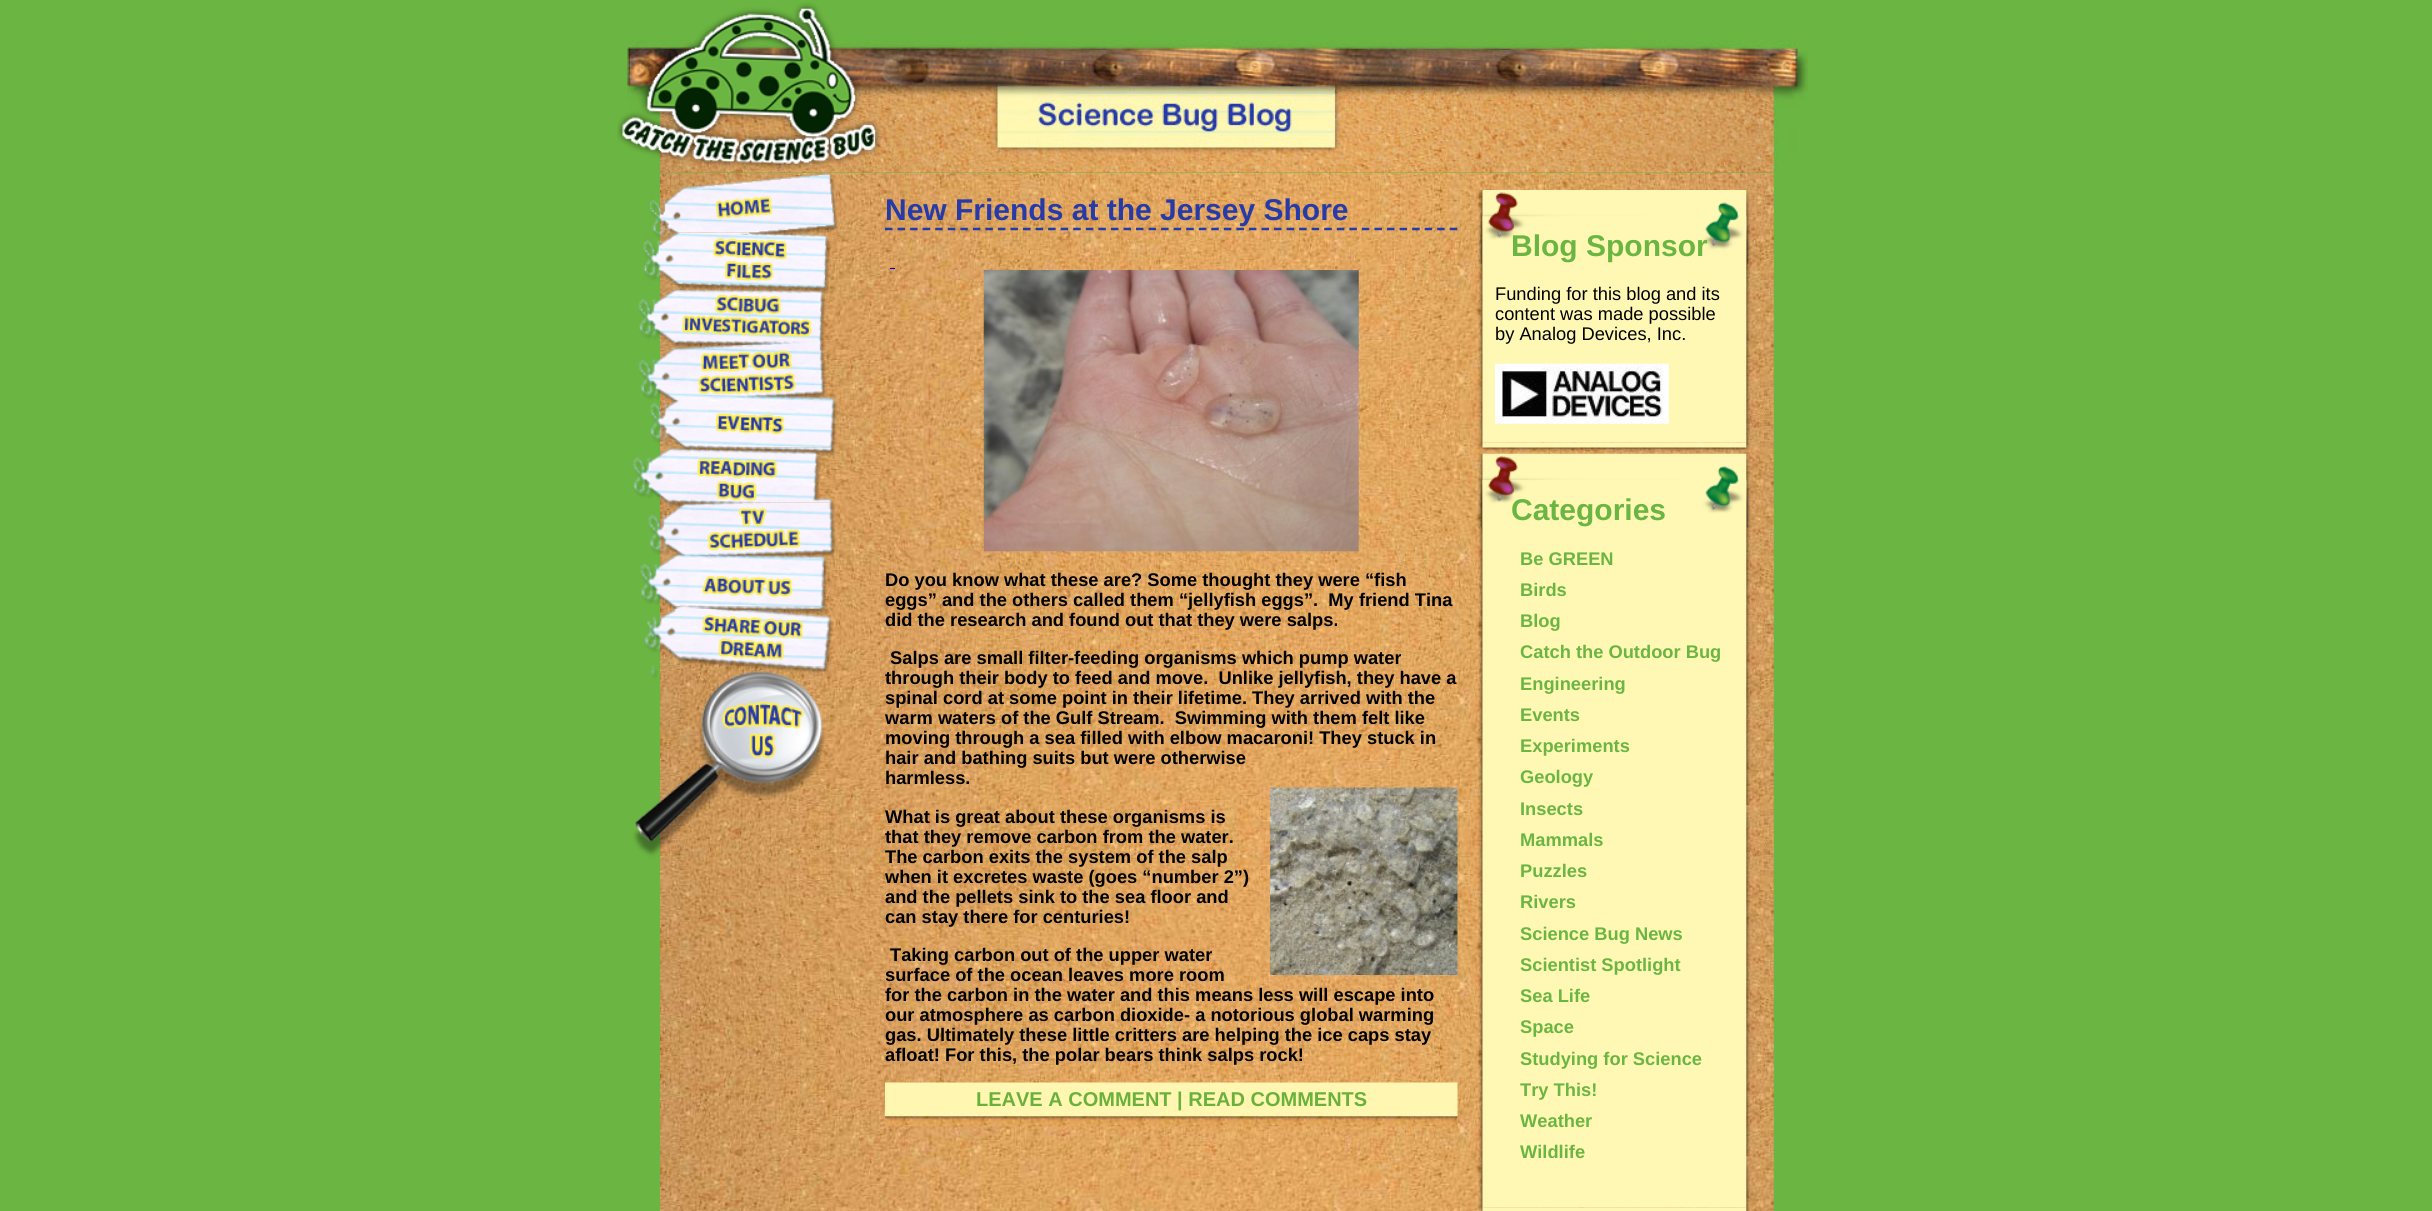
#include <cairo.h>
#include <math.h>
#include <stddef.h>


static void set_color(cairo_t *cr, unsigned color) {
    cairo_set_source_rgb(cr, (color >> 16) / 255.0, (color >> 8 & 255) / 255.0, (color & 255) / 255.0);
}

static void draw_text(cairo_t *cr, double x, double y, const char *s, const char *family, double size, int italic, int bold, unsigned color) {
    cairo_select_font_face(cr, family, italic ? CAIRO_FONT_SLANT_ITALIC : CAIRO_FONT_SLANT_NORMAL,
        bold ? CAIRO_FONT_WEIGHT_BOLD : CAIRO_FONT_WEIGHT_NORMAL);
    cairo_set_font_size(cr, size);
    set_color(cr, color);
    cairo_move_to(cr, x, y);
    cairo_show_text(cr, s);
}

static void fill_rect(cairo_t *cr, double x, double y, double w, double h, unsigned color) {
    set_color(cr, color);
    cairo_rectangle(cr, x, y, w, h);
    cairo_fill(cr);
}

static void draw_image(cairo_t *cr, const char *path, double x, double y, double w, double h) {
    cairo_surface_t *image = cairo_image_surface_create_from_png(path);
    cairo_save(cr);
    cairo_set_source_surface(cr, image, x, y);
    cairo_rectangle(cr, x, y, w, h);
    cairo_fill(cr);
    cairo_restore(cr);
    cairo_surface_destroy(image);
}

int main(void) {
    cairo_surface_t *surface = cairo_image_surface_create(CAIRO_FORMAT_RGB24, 2432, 1211);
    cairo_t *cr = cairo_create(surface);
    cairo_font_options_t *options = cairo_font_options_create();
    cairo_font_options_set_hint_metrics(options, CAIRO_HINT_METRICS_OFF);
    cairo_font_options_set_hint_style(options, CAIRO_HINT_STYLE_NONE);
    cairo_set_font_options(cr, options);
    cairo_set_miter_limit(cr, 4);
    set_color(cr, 0x6BB542);
    cairo_paint(cr);
    draw_image(cr, "assets/img1.png", 660, 173, 1114, 1038);
    draw_image(cr, "assets/img2.png", 627, 40, 1181, 133);
    draw_image(cr, "assets/img3.png", 617, 2, 265, 168);
    draw_image(cr, "assets/img4.png", 649, 173, 190, 60);
    draw_image(cr, "assets/img5.png", 642, 232, 189, 57);
    draw_image(cr, "assets/img6.png", 638, 288, 191, 57);
    draw_image(cr, "assets/img7.png", 638, 345, 197, 55);
    draw_image(cr, "assets/img8.png", 650, 400, 188, 48);
    draw_image(cr, "assets/img9.png", 632, 447, 204, 56);
    draw_image(cr, "assets/img10.png", 647, 502, 189, 53);
    draw_image(cr, "assets/img11.png", 640, 555, 195, 52);
    draw_image(cr, "assets/img12.png", 644, 606, 190, 61);
    draw_image(cr, "assets/img13.png", 633, 666, 197, 194);
    cairo_new_path(cr);
    cairo_move_to(cr, 885, 229);
    cairo_line_to(cr, 1457.5, 229);
    set_color(cr, 0x263BA8);
    cairo_set_line_width(cr, 2.5);
    cairo_set_dash(cr, (double[]){7.5, 5.05}, 2, 0);
    cairo_stroke(cr);
    draw_text(cr, 885, 220, "New Friends at the Jersey Shore", "Liberation Sans", 30, 0, 1, 0x263BA8);
    fill_rect(cr, 890, 268, 5, 1, 0x0000EE);
    draw_image(cr, "assets/img14.png", 983, 270, 376, 282);
    draw_text(cr, 885, 586, "Do you know what these are? Some thought they were “fish", "Liberation Sans", 18.3, 0, 1, 0x000000);
    draw_text(cr, 885, 606, "eggs” and the others called them “jellyfish eggs”.  My friend Tina", "Liberation Sans", 18.3, 0, 1, 0x000000);
    draw_text(cr, 885, 626, "did the research and found out that they were salps.", "Liberation Sans", 18.3, 0, 1, 0x000000);
    draw_text(cr, 890, 664, "Salps are small filter-feeding organisms which pump water", "Liberation Sans", 18.3, 0, 1, 0x000000);
    draw_text(cr, 885, 684, "through their body to feed and move.  Unlike jellyfish, they have a", "Liberation Sans", 18.3, 0, 1, 0x000000);
    draw_text(cr, 885, 704, "spinal cord at some point in their lifetime. They arrived with the", "Liberation Sans", 18.3, 0, 1, 0x000000);
    draw_text(cr, 885, 724, "warm waters of the Gulf Stream.  Swimming with them felt like", "Liberation Sans", 18.3, 0, 1, 0x000000);
    draw_text(cr, 885, 744, "moving through a sea filled with elbow macaroni! They stuck in", "Liberation Sans", 18.3, 0, 1, 0x000000);
    draw_text(cr, 885, 764, "hair and bathing suits but were otherwise", "Liberation Sans", 18.3, 0, 1, 0x000000);
    draw_text(cr, 885, 784, "harmless.", "Liberation Sans", 18.3, 0, 1, 0x000000);
    draw_image(cr, "assets/img15.png", 1270, 787, 188, 188);
    draw_text(cr, 885, 823, "What is great about these organisms is", "Liberation Sans", 18.3, 0, 1, 0x000000);
    draw_text(cr, 885, 843, "that they remove carbon from the water.", "Liberation Sans", 18.3, 0, 1, 0x000000);
    draw_text(cr, 885, 863, "The carbon exits the system of the salp", "Liberation Sans", 18.3, 0, 1, 0x000000);
    draw_text(cr, 885, 883, "when it excretes waste (goes “number 2”)", "Liberation Sans", 18.3, 0, 1, 0x000000);
    draw_text(cr, 885, 903, "and the pellets sink to the sea floor and", "Liberation Sans", 18.3, 0, 1, 0x000000);
    draw_text(cr, 885, 923, "can stay there for centuries!", "Liberation Sans", 18.3, 0, 1, 0x000000);
    draw_text(cr, 890, 961, "Taking carbon out of the upper water", "Liberation Sans", 18.3, 0, 1, 0x000000);
    draw_text(cr, 885, 981, "surface of the ocean leaves more room", "Liberation Sans", 18.3, 0, 1, 0x000000);
    draw_text(cr, 885, 1001, "for the carbon in the water and this means less will escape into", "Liberation Sans", 18.3, 0, 1, 0x000000);
    draw_text(cr, 885, 1021, "our atmosphere as carbon dioxide- a notorious global warming", "Liberation Sans", 18.3, 0, 1, 0x000000);
    draw_text(cr, 885, 1041, "gas. Ultimately these little critters are helping the ice caps stay", "Liberation Sans", 18.3, 0, 1, 0x000000);
    draw_text(cr, 885, 1061, "afloat! For this, the polar bears think salps rock!", "Liberation Sans", 18.3, 0, 1, 0x000000);
    draw_image(cr, "assets/img16.png", 885, 1082, 573, 45);
    draw_text(cr, 976, 1106, "LEAVE A COMMENT | READ COMMENTS", "Liberation Sans", 20, 0, 1, 0x6AB13C);
    draw_image(cr, "assets/img17.png", 1478, 190, 275, 253);
    draw_image(cr, "assets/img18.png", 1478, 192, 273, 72);
    draw_text(cr, 1511, 256, "Blog Sponsor", "Liberation Sans", 30, 0, 1, 0x6BB542);
    draw_text(cr, 1495, 300, "Funding for this blog and its", "Liberation Sans", 18.3, 0, 0, 0x000000);
    draw_text(cr, 1495, 320, "content was made possible", "Liberation Sans", 18.3, 0, 0, 0x000000);
    draw_text(cr, 1495, 340, "by Analog Devices, Inc.", "Liberation Sans", 18.3, 0, 0, 0x000000);
    draw_image(cr, "assets/img19.png", 1495, 363, 174, 61);
    draw_image(cr, "assets/img20.png", 1478, 442, 273, 10);
    draw_image(cr, "assets/img21.png", 1478, 453, 275, 755);
    draw_image(cr, "assets/img22.png", 1478, 456, 273, 72);
    draw_text(cr, 1511, 520, "Categories", "Liberation Sans", 30, 0, 1, 0x6BB542);
    draw_text(cr, 1520, 565, "Be GREEN", "Liberation Sans", 18.3, 0, 1, 0x6BB542);
    draw_text(cr, 1520, 596, "Birds", "Liberation Sans", 18.3, 0, 1, 0x6BB542);
    draw_text(cr, 1520, 627, "Blog", "Liberation Sans", 18.3, 0, 1, 0x6BB542);
    draw_text(cr, 1520, 658, "Catch the Outdoor Bug", "Liberation Sans", 18.3, 0, 1, 0x6BB542);
    draw_text(cr, 1520, 690, "Engineering", "Liberation Sans", 18.3, 0, 1, 0x6BB542);
    draw_text(cr, 1520, 721, "Events", "Liberation Sans", 18.3, 0, 1, 0x6BB542);
    draw_text(cr, 1520, 752, "Experiments", "Liberation Sans", 18.3, 0, 1, 0x6BB542);
    draw_text(cr, 1520, 783, "Geology", "Liberation Sans", 18.3, 0, 1, 0x6BB542);
    draw_text(cr, 1520, 815, "Insects", "Liberation Sans", 18.3, 0, 1, 0x6BB542);
    draw_text(cr, 1520, 846, "Mammals", "Liberation Sans", 18.3, 0, 1, 0x6BB542);
    draw_text(cr, 1520, 877, "Puzzles", "Liberation Sans", 18.3, 0, 1, 0x6BB542);
    draw_text(cr, 1520, 908, "Rivers", "Liberation Sans", 18.3, 0, 1, 0x6BB542);
    draw_text(cr, 1520, 940, "Science Bug News", "Liberation Sans", 18.3, 0, 1, 0x6BB542);
    draw_text(cr, 1520, 971, "Scientist Spotlight", "Liberation Sans", 18.3, 0, 1, 0x6BB542);
    draw_text(cr, 1520, 1002, "Sea Life", "Liberation Sans", 18.3, 0, 1, 0x6BB542);
    draw_text(cr, 1520, 1033, "Space", "Liberation Sans", 18.3, 0, 1, 0x6BB542);
    draw_text(cr, 1520, 1065, "Studying for Science", "Liberation Sans", 18.3, 0, 1, 0x6BB542);
    draw_text(cr, 1520, 1096, "Try This!", "Liberation Sans", 18.3, 0, 1, 0x6BB542);
    draw_text(cr, 1520, 1127, "Weather", "Liberation Sans", 18.3, 0, 1, 0x6BB542);
    draw_text(cr, 1520, 1158, "Wildlife", "Liberation Sans", 18.3, 0, 1, 0x6BB542);
    draw_image(cr, "assets/img23.png", 1478, 1207, 273, 4);
    cairo_surface_write_to_png(surface, "output.png");
    cairo_font_options_destroy(options);
    cairo_destroy(cr);
    cairo_surface_destroy(surface);
    return 0;
}
